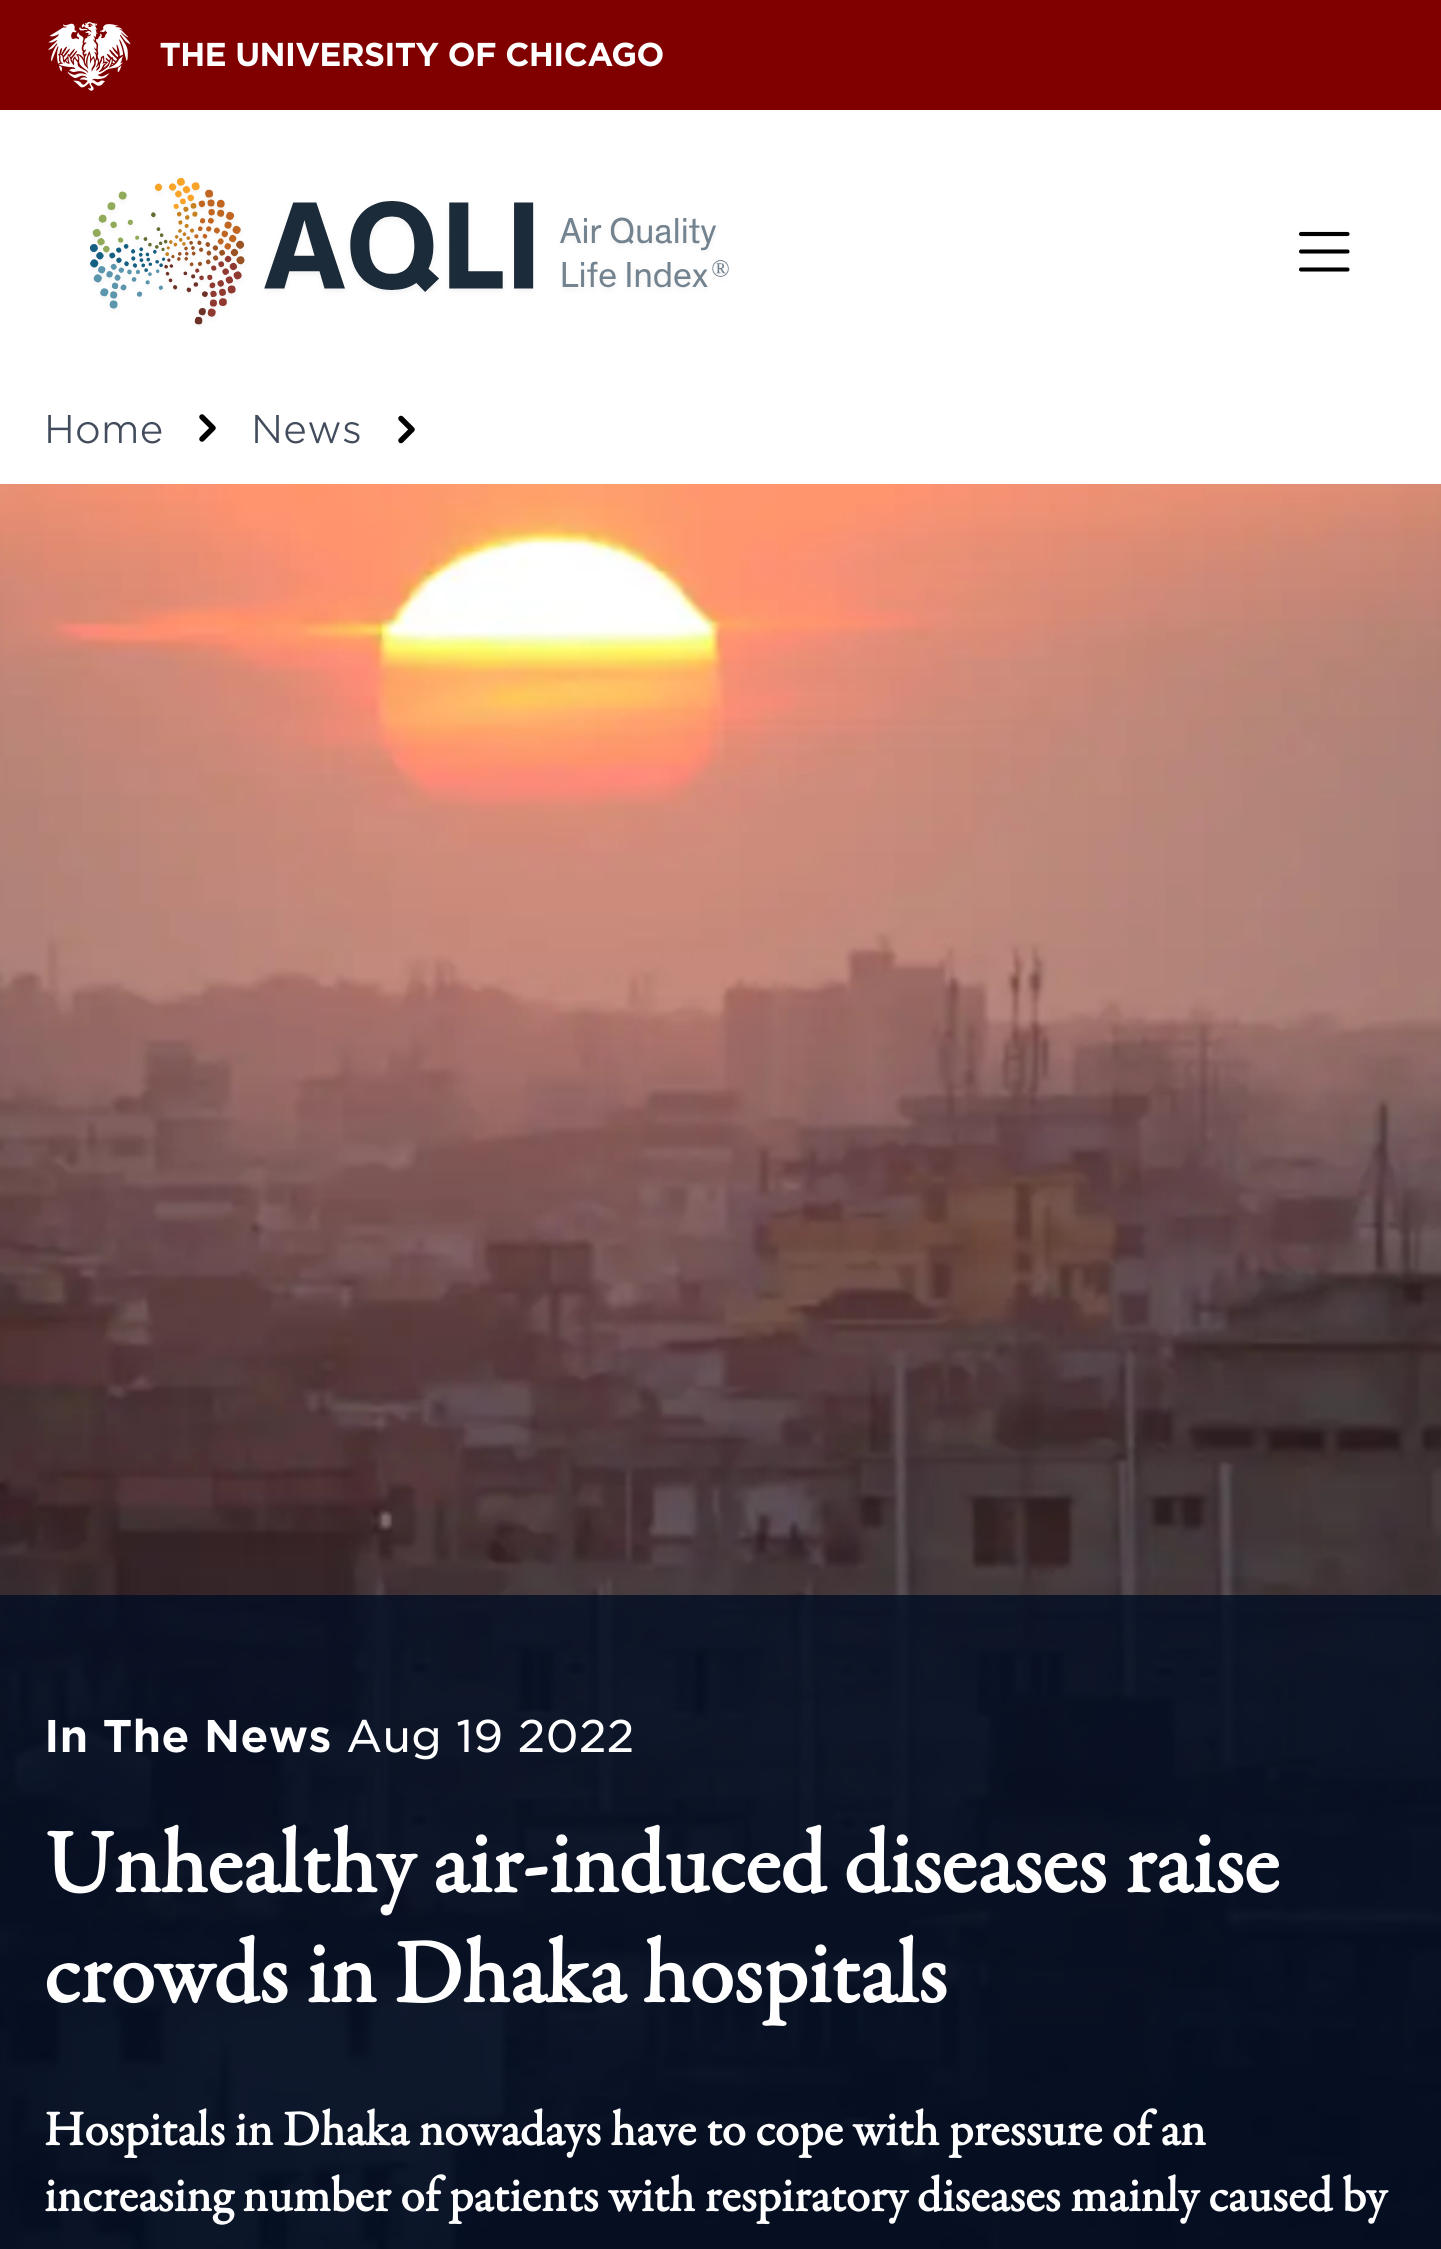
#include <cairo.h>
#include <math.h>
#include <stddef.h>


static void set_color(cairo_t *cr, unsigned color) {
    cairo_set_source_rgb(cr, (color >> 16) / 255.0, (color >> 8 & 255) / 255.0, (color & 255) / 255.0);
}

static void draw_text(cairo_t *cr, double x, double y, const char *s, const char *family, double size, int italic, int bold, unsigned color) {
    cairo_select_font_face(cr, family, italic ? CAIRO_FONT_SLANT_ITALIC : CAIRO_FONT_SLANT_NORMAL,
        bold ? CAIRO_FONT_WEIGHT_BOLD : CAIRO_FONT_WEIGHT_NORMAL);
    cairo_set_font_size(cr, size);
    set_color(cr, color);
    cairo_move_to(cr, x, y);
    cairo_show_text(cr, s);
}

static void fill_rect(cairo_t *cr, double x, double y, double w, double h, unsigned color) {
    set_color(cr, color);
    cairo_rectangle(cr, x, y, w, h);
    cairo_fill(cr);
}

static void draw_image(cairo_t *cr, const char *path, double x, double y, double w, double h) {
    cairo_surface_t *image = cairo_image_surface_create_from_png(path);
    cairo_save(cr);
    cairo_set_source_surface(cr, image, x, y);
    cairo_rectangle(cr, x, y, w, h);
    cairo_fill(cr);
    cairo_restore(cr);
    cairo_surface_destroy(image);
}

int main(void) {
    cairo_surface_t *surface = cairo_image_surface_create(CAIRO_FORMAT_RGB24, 1441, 2249);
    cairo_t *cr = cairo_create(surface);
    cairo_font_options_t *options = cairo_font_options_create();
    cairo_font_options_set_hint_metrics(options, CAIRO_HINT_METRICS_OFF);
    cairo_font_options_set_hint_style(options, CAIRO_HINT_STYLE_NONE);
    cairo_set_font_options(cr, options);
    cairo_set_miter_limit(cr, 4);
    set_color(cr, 0xFFFFFF);
    cairo_paint(cr);
    fill_rect(cr, 0, 0, 1441, 110, 0x800000);
    draw_image(cr, "assets/img1.png", 48, 22, 83, 69);
    draw_image(cr, "assets/img2.png", 160, 42, 503, 25);
    draw_image(cr, "assets/img3.png", 90, 178, 639, 149);
    cairo_new_path(cr);
    cairo_move_to(cr, 1301, 234);
    cairo_line_to(cr, 1347.5, 234);
    cairo_move_to(cr, 1301, 251.5);
    cairo_line_to(cr, 1347.5, 251.5);
    cairo_move_to(cr, 1301, 269.5);
    cairo_line_to(cr, 1347.5, 269.5);
    set_color(cr, 0x000000);
    cairo_set_line_width(cr, 4.1);
    cairo_set_line_cap(cr, CAIRO_LINE_CAP_ROUND);
    cairo_set_line_join(cr, CAIRO_LINE_JOIN_ROUND);
    cairo_stroke(cr);
    draw_text(cr, 44, 443, "Home", "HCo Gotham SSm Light", 38.5, 0, 0, 0x424C5C);
    cairo_new_path(cr);
    cairo_move_to(cr, 202, 439);
    cairo_line_to(cr, 213, 428);
    cairo_line_to(cr, 202, 417);
    set_color(cr, 0x000000);
    cairo_set_line_width(cr, 5.5);
    cairo_stroke(cr);
    draw_text(cr, 251, 443, "News", "HCo Gotham SSm Light", 38.5, 0, 0, 0x424C5C);
    cairo_new_path(cr);
    cairo_move_to(cr, 401, 440.5);
    cairo_line_to(cr, 412, 429.5);
    cairo_line_to(cr, 401, 418.5);
    set_color(cr, 0x000000);
    cairo_stroke(cr);
    draw_image(cr, "assets/img4.png", 0, 484, 1441, 1765);
    cairo_set_source_rgba(cr, 0, 0.051, 0.141, 0.8);
    cairo_rectangle(cr, 0, 1595, 1441, 654);
    cairo_fill(cr);
    draw_text(cr, 44, 1752, "In The News", "HCo Gotham SSm", 44, 0, 1, 0xFFFFFF);
    draw_text(cr, 346, 1752, "Aug 19 2022", "HCo Gotham SSm", 44, 0, 0, 0xFFFFFF);
    draw_text(cr, 44, 1892, "Unhealthy air-induced diseases raise", "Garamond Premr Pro", 90.75, 0, 1, 0xFFFFFF);
    draw_text(cr, 44, 2002, "crowds in Dhaka hospitals", "Garamond Premr Pro", 90.75, 0, 1, 0xFFFFFF);
    draw_text(cr, 44, 2145, "Hospitals in Dhaka nowadays have to cope with pressure of an", "Garamond Premr Pro", 49.5, 0, 1, 0xFFFFFF);
    draw_text(cr, 44, 2211, "increasing number of patients with respiratory diseases mainly caused by", "Garamond Premr Pro", 49.5, 0, 1, 0xFFFFFF);
    cairo_surface_write_to_png(surface, "output.png");
    cairo_font_options_destroy(options);
    cairo_destroy(cr);
    cairo_surface_destroy(surface);
    return 0;
}
